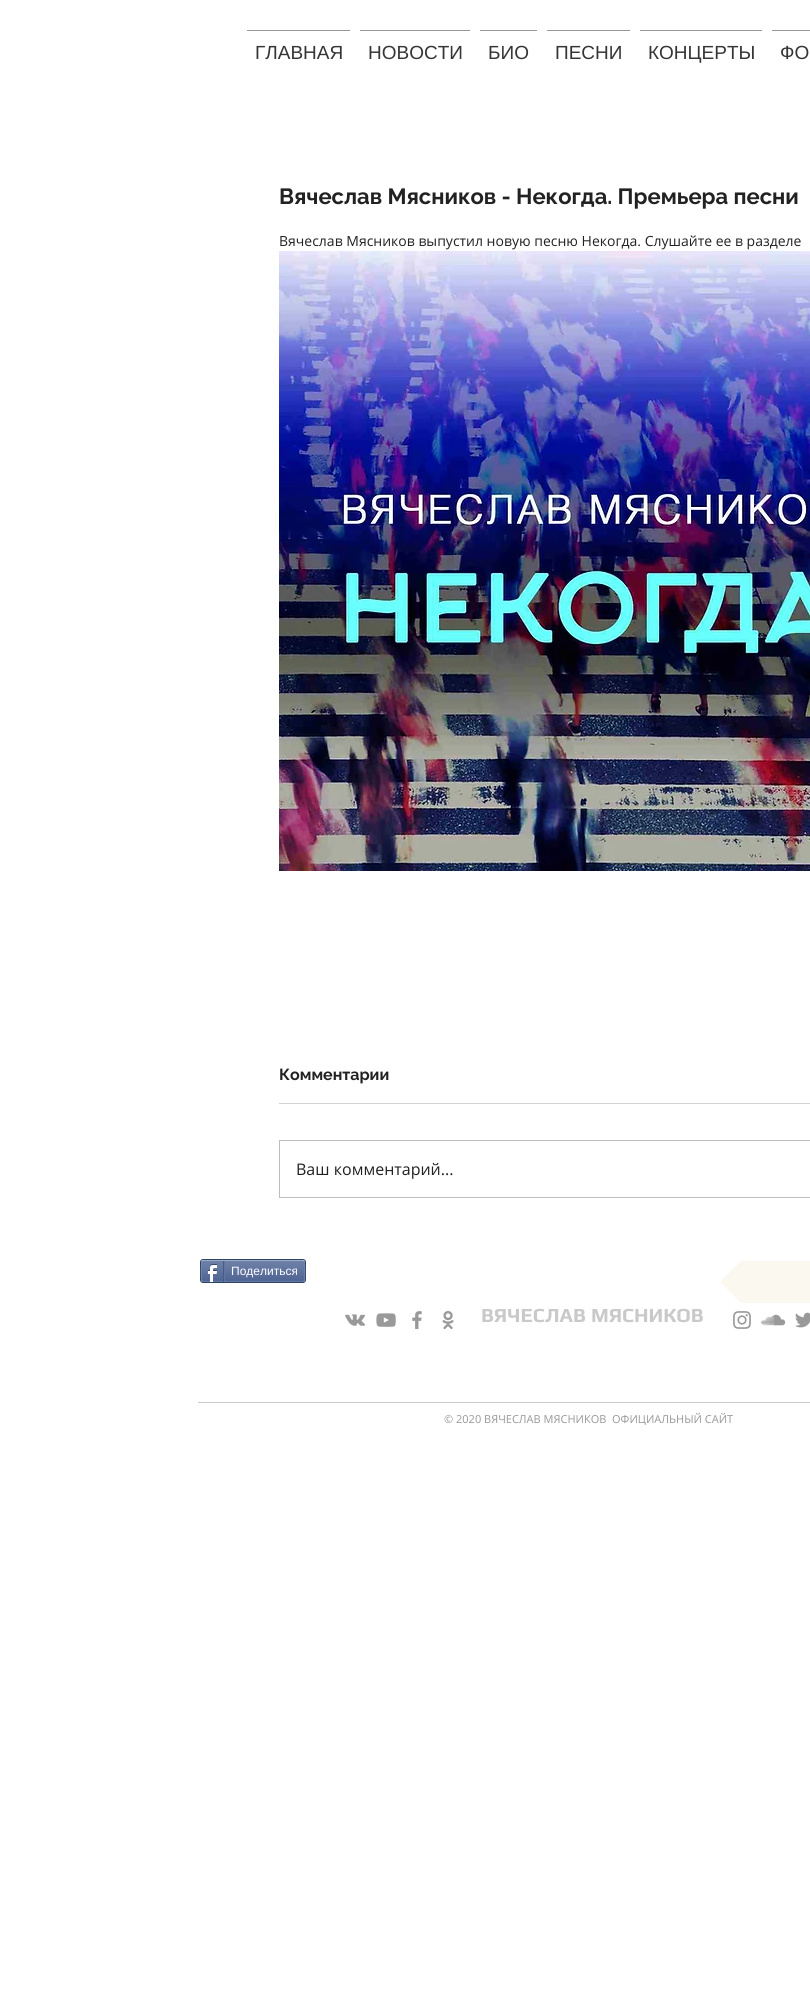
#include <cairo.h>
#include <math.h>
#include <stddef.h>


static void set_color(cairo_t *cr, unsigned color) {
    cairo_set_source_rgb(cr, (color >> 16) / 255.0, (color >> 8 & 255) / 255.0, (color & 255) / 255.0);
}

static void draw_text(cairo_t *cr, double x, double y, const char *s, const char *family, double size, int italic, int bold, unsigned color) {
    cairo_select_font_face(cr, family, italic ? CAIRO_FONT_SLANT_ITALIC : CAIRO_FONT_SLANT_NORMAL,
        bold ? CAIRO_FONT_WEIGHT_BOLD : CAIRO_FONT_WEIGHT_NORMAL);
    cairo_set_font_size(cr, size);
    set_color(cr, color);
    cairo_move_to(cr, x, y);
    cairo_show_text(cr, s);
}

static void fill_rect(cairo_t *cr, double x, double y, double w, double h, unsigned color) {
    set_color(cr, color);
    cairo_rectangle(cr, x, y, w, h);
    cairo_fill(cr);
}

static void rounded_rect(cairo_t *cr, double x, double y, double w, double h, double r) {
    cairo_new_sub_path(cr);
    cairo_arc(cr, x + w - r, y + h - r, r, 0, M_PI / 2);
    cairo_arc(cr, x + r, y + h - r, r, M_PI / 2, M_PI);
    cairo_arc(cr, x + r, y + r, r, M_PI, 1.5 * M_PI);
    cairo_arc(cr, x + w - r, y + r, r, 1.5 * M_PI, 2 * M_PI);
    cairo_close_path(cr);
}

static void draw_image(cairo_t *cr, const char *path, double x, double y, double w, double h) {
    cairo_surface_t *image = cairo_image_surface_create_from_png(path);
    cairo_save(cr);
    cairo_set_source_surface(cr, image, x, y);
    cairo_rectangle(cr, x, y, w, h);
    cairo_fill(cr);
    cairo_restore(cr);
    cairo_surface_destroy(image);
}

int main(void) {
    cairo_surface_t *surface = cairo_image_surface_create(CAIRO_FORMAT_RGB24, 810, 2012);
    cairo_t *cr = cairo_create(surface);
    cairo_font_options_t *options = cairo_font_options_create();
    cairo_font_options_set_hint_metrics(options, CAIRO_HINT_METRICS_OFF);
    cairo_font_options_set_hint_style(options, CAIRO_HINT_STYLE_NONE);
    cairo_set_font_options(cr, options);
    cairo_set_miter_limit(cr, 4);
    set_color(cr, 0xFFFFFF);
    cairo_paint(cr);
    fill_rect(cr, 247, 30, 103, 1, 0x979797);
    draw_text(cr, 255, 59, "ГЛАВНАЯ", "Liberation Sans", 19, 0, 0, 0x363434);
    fill_rect(cr, 360, 30, 110, 1, 0x979797);
    draw_text(cr, 368, 59, "НОВОСТИ", "Liberation Sans", 19, 0, 0, 0x363434);
    fill_rect(cr, 480, 30, 57, 1, 0x979797);
    draw_text(cr, 488, 59, "БИО", "Liberation Sans", 19, 0, 0, 0x363434);
    fill_rect(cr, 547, 30, 83, 1, 0x979797);
    draw_text(cr, 555, 59, "ПЕСНИ", "Liberation Sans", 19, 0, 0, 0x363434);
    fill_rect(cr, 640, 30, 122, 1, 0x979797);
    draw_text(cr, 648, 59, "КОНЦЕРТЫ", "Liberation Sans", 19, 0, 0, 0x363434);
    fill_rect(cr, 772, 30, 38, 1, 0x979797);
    draw_text(cr, 780, 59, "ФО", "Liberation Sans", 19, 0, 0, 0x363434);
    draw_text(cr, 279, 204, "Вячеслав Мясников - Некогда. Премьера песни", "Raleway", 22, 0, 1, 0x222222);
    draw_text(cr, 279, 246, "Вячеслав Мясников выпустил новую песню Некогда. Слушайте ее в разделе", "Open Sans", 14, 0, 0, 0x222222);
    draw_image(cr, "assets/img1.png", 279, 251, 531, 620);
    draw_text(cr, 279, 1080, "Комментарии", "Raleway", 16, 0, 1, 0x222222);
    fill_rect(cr, 279, 1103, 531, 1, 0xD3D3D3);
    cairo_rectangle(cr, 279.5, 1140.5, 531, 57);
    set_color(cr, 0xBDBDBD);
    cairo_set_line_width(cr, 1);
    cairo_stroke(cr);
    draw_text(cr, 296, 1175, "Ваш комментарий...", "Open Sans", 16, 0, 0, 0x222222);
    rounded_rect(cr, 200.5, 1259.5, 105, 23, 2.5);
    set_color(cr, 0x2D4565);
    cairo_stroke(cr);
    draw_image(cr, "assets/img2.png", 201, 1261, 104, 21);
    cairo_new_path(cr);
    cairo_move_to(cr, 202, 1261);
    cairo_line_to(cr, 203, 1260.5);
    cairo_line_to(cr, 303, 1260.5);
    cairo_line_to(cr, 304, 1261);
    set_color(cr, 0x9AABC6);
    cairo_stroke(cr);
    cairo_new_path(cr);
    cairo_move_to(cr, 304, 1261);
    cairo_curve_to(cr, 305, 1261.5, 305, 1280.5, 304, 1281);
    set_color(cr, 0x6F83AD);
    cairo_stroke(cr);
    cairo_new_path(cr);
    cairo_move_to(cr, 304, 1281);
    cairo_line_to(cr, 303, 1281.5);
    cairo_line_to(cr, 203, 1281.5);
    cairo_line_to(cr, 202, 1281);
    set_color(cr, 0x6176A3);
    cairo_stroke(cr);
    cairo_new_path(cr);
    cairo_move_to(cr, 202, 1281);
    cairo_curve_to(cr, 201, 1280.5, 201, 1261.5, 202, 1261);
    set_color(cr, 0x6F83AD);
    cairo_stroke(cr);
    draw_image(cr, "assets/img3.png", 207, 1264, 10, 18);
    fill_rect(cr, 223, 1261, 1, 21, 0x425E85);
    draw_text(cr, 231, 1275, "Поделиться", "Liberation Sans", 12, 0, 0, 0xFFFFFF);
    fill_rect(cr, 224, 1261, 1, 20, 0x6176A3);
    cairo_save(cr);
    cairo_rectangle(cr, 720, 1261, 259, 42);
    cairo_clip(cr);
    set_color(cr, 0xFBF8EF);
    cairo_new_path(cr);
    cairo_move_to(cr, 770, 1282);
    cairo_line_to(cr, 720, 1282);
    cairo_line_to(cr, 770, 1232);
    cairo_close_path(cr);
    cairo_move_to(cr, 720, 1282);
    cairo_line_to(cr, 770, 1282);
    cairo_line_to(cr, 770, 1332);
    cairo_close_path(cr);
    cairo_fill(cr);
    cairo_restore(cr);
    fill_rect(cr, 770, 1261, 40, 42, 0xFBF8EF);
    draw_image(cr, "assets/img4.png", 345, 1314, 21, 12);
    draw_image(cr, "assets/img5.png", 376, 1313, 20, 14);
    draw_image(cr, "assets/img6.png", 412, 1311, 10, 19);
    draw_image(cr, "assets/img7.png", 442, 1310, 12, 20);
    draw_text(cr, 481, 1322, "ВЯЧЕСЛАВ МЯСНИКОВ", "Play", 20, 0, 1, 0xC9C9C9);
    draw_image(cr, "assets/img8.png", 733, 1311, 18, 18);
    draw_image(cr, "assets/img9.png", 761, 1314, 24, 12);
    draw_image(cr, "assets/img10.png", 795, 1312, 15, 16);
    fill_rect(cr, 198, 1402, 612, 1, 0xC9C9C9);
    draw_text(cr, 444, 1423, "© 2020 ВЯЧЕСЛАВ МЯСНИКОВ  ОФИЦИАЛЬНЫЙ САЙТ", "Open Sans", 11, 0, 0, 0x979797);
    cairo_surface_write_to_png(surface, "output.png");
    cairo_font_options_destroy(options);
    cairo_destroy(cr);
    cairo_surface_destroy(surface);
    return 0;
}
